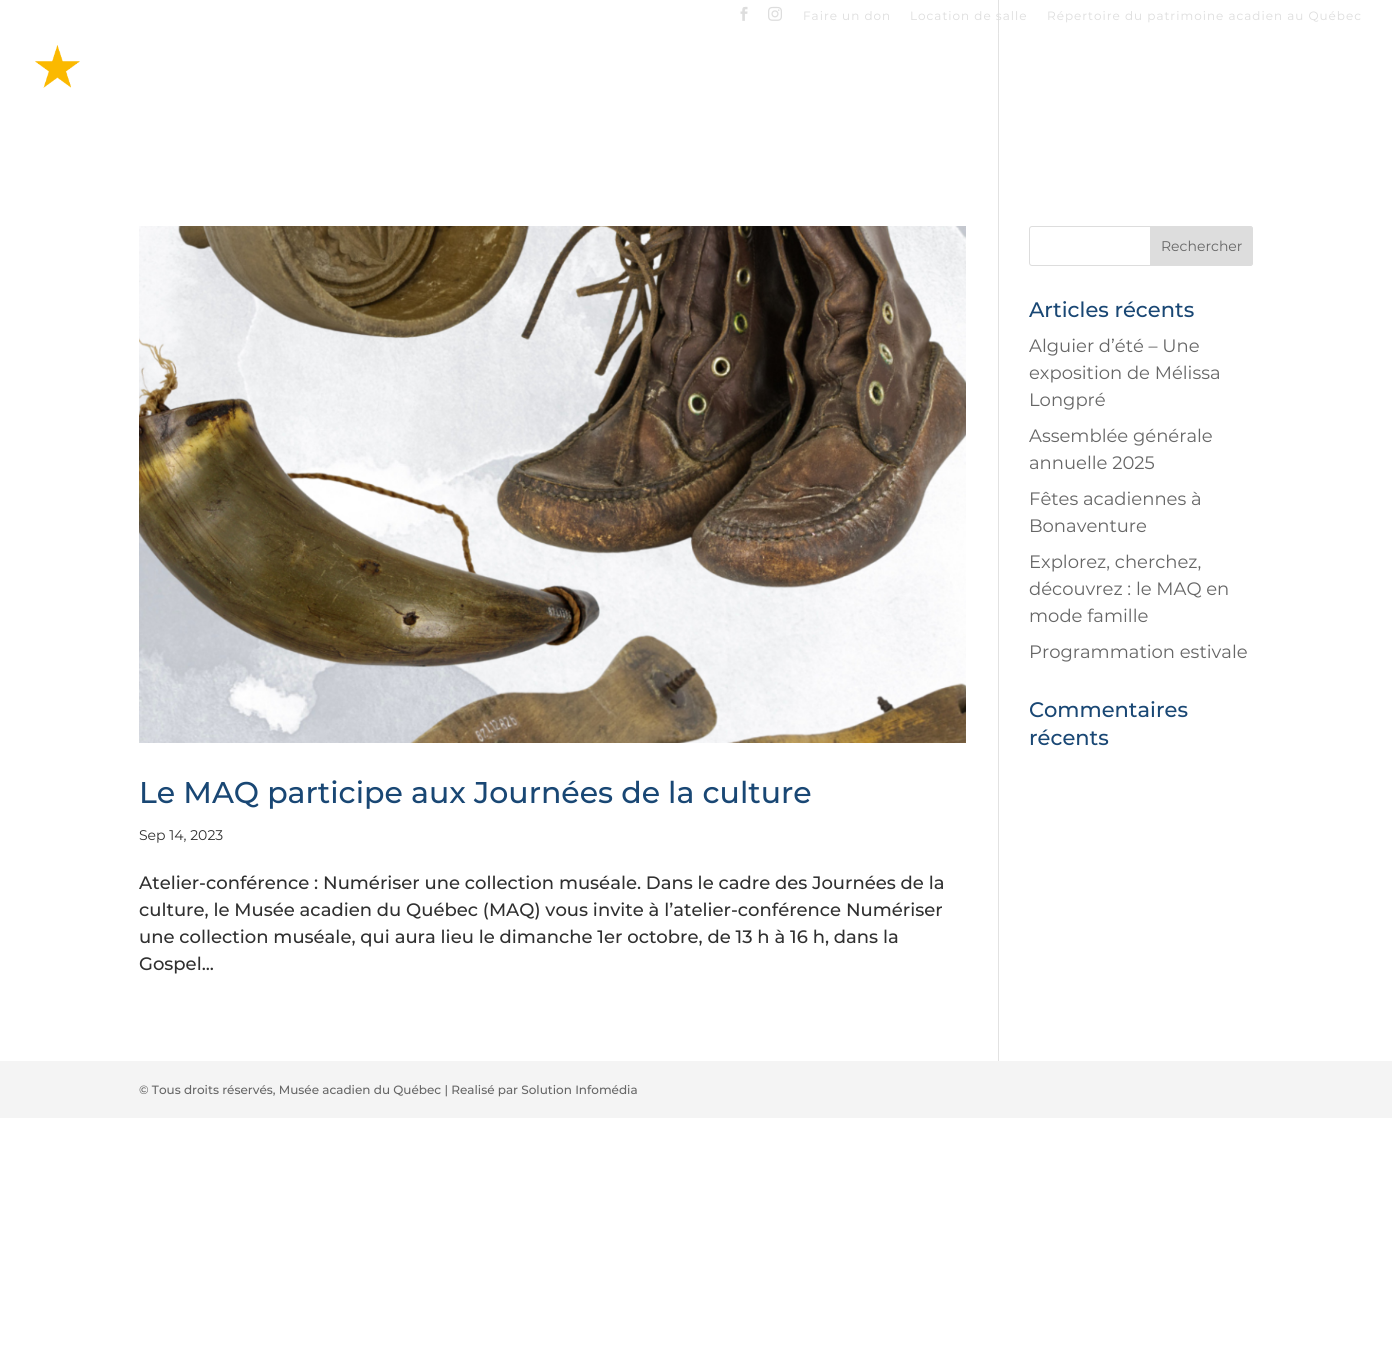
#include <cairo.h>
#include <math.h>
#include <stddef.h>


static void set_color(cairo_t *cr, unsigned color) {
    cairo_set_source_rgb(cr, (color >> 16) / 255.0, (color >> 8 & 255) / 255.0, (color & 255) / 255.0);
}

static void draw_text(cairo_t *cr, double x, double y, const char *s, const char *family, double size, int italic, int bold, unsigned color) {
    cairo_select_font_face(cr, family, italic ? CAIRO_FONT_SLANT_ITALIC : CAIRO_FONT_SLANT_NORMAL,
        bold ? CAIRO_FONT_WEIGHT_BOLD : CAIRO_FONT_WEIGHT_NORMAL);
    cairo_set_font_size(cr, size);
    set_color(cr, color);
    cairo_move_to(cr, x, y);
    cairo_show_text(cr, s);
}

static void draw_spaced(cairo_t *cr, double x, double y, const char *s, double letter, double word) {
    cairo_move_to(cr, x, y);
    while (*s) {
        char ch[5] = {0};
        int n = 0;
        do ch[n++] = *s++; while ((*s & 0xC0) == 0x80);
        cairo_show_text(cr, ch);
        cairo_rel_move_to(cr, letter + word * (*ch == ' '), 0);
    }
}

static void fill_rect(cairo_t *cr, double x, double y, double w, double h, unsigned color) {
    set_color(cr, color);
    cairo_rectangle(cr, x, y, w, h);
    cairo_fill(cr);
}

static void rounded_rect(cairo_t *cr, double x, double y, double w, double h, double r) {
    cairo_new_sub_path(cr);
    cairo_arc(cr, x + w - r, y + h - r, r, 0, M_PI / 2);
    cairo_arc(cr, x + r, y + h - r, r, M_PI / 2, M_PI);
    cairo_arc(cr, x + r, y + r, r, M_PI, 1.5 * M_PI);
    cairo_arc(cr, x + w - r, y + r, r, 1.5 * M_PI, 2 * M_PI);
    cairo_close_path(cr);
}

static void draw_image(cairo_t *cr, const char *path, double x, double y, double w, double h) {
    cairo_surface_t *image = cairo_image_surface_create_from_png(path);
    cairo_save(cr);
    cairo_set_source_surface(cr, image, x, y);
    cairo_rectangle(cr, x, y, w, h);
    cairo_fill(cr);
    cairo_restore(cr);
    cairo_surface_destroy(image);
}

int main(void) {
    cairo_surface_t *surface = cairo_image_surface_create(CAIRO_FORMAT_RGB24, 1392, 1353);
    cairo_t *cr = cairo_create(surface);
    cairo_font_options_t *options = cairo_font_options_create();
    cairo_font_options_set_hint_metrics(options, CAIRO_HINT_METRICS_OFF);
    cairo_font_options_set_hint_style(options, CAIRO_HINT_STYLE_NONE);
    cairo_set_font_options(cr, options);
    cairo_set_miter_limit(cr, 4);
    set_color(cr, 0xFFFFFF);
    cairo_paint(cr);
    draw_image(cr, "assets/img1.png", 740, 6, 8, 15);
    draw_image(cr, "assets/img2.png", 768, 6, 14, 15);
    cairo_select_font_face(cr, "Montserrat", CAIRO_FONT_SLANT_NORMAL, CAIRO_FONT_WEIGHT_NORMAL);
    cairo_set_font_size(cr, 12);
    set_color(cr, 0xDDDDDD);
    draw_spaced(cr, 803, 20, "Faire un don", 1, 0);
    fill_rect(cr, 998, 0, 1, 1061, 0xE2E2E2);
    set_color(cr, 0xDDDDDD);
    draw_spaced(cr, 910, 20, "Location de salle", 1, 0);
    draw_spaced(cr, 1047, 20, "Répertoire du patrimoine acadien au Québec", 1, 0);
    draw_image(cr, "assets/img3.png", 35, 45, 45, 43);
    fill_rect(cr, 998, 33, 1, 1, 0xE5E5E5);
    rounded_rect(cr, 1029.5, 226.5, 223, 39, 2.5);
    set_color(cr, 0xDDDDDD);
    cairo_set_line_width(cr, 1);
    cairo_stroke(cr);
    cairo_new_path(cr);
    cairo_move_to(cr, 1150.5, 226.5);
    cairo_line_to(cr, 1250, 226.5);
    cairo_curve_to(cr, 1251.5, 226.5, 1252.5, 227.5, 1252.5, 229);
    cairo_line_to(cr, 1252.5, 263);
    cairo_curve_to(cr, 1252.5, 264.5, 1251.5, 265.5, 1250, 265.5);
    cairo_line_to(cr, 1150.5, 265.5);
    cairo_close_path(cr);
    cairo_fill_preserve(cr);
    cairo_stroke(cr);
    draw_text(cr, 1161, 251, "Rechercher", "Montserrat", 14, 0, 0, 0x666666);
    draw_text(cr, 1029, 317, "Articles récents", "Montserrat Medium", 21, 0, 0, 0x194774);
    draw_text(cr, 1029, 352, "Alguier d’été – Une", "Montserrat", 18, 0, 0, 0x666666);
    draw_text(cr, 1029, 379, "exposition de Mélissa", "Montserrat", 18, 0, 0, 0x666666);
    draw_text(cr, 1029, 406, "Longpré", "Montserrat", 18, 0, 0, 0x666666);
    draw_text(cr, 1029, 442, "Assemblée générale", "Montserrat", 18, 0, 0, 0x666666);
    draw_text(cr, 1029, 469, "annuelle 2025", "Montserrat", 18, 0, 0, 0x666666);
    draw_text(cr, 1029, 505, "Fêtes acadiennes à", "Montserrat", 18, 0, 0, 0x666666);
    draw_text(cr, 1029, 532, "Bonaventure", "Montserrat", 18, 0, 0, 0x666666);
    draw_text(cr, 1029, 568, "Explorez, cherchez,", "Montserrat", 18, 0, 0, 0x666666);
    draw_text(cr, 1029, 595, "découvrez : le MAQ en", "Montserrat", 18, 0, 0, 0x666666);
    draw_text(cr, 1029, 622, "mode famille", "Montserrat", 18, 0, 0, 0x666666);
    draw_text(cr, 1029, 658, "Programmation estivale", "Montserrat", 18, 0, 0, 0x666666);
    draw_text(cr, 1029, 717, "Commentaires", "Montserrat Medium", 21, 0, 0, 0x194774);
    draw_text(cr, 1029, 745, "récents", "Montserrat Medium", 21, 0, 0, 0x194774);
    draw_image(cr, "assets/img4.png", 139, 226, 827, 517);
    draw_text(cr, 139, 803, "Le MAQ participe aux Journées de la culture", "Montserrat Medium", 30, 0, 0, 0x194774);
    draw_text(cr, 139, 840, "Sep 14, 2023", "Montserrat", 14, 0, 0, 0x303030);
    draw_text(cr, 139, 889, "Atelier-conférence : Numériser une collection muséale. Dans le cadre des Journées de la", "Montserrat Medium", 18, 0, 0, 0x303030);
    draw_text(cr, 139, 916, "culture, le Musée acadien du Québec (MAQ) vous invite à l’atelier-conférence Numériser", "Montserrat Medium", 18, 0, 0, 0x303030);
    draw_text(cr, 139, 943, "une collection muséale, qui aura lieu le dimanche 1er octobre, de 13 h à 16 h, dans la", "Montserrat Medium", 18, 0, 0, 0x303030);
    draw_text(cr, 139, 970, "Gospel...", "Montserrat Medium", 18, 0, 0, 0x303030);
    fill_rect(cr, 0, 1061, 1392, 57, 0xF4F4F4);
    draw_text(cr, 139, 1094, "© Tous droits réservés, Musée acadien du Québec | Realisé par Solution Infomédia", "Montserrat Medium", 12, 0, 0, 0x666666);
    cairo_surface_write_to_png(surface, "output.png");
    cairo_font_options_destroy(options);
    cairo_destroy(cr);
    cairo_surface_destroy(surface);
    return 0;
}
